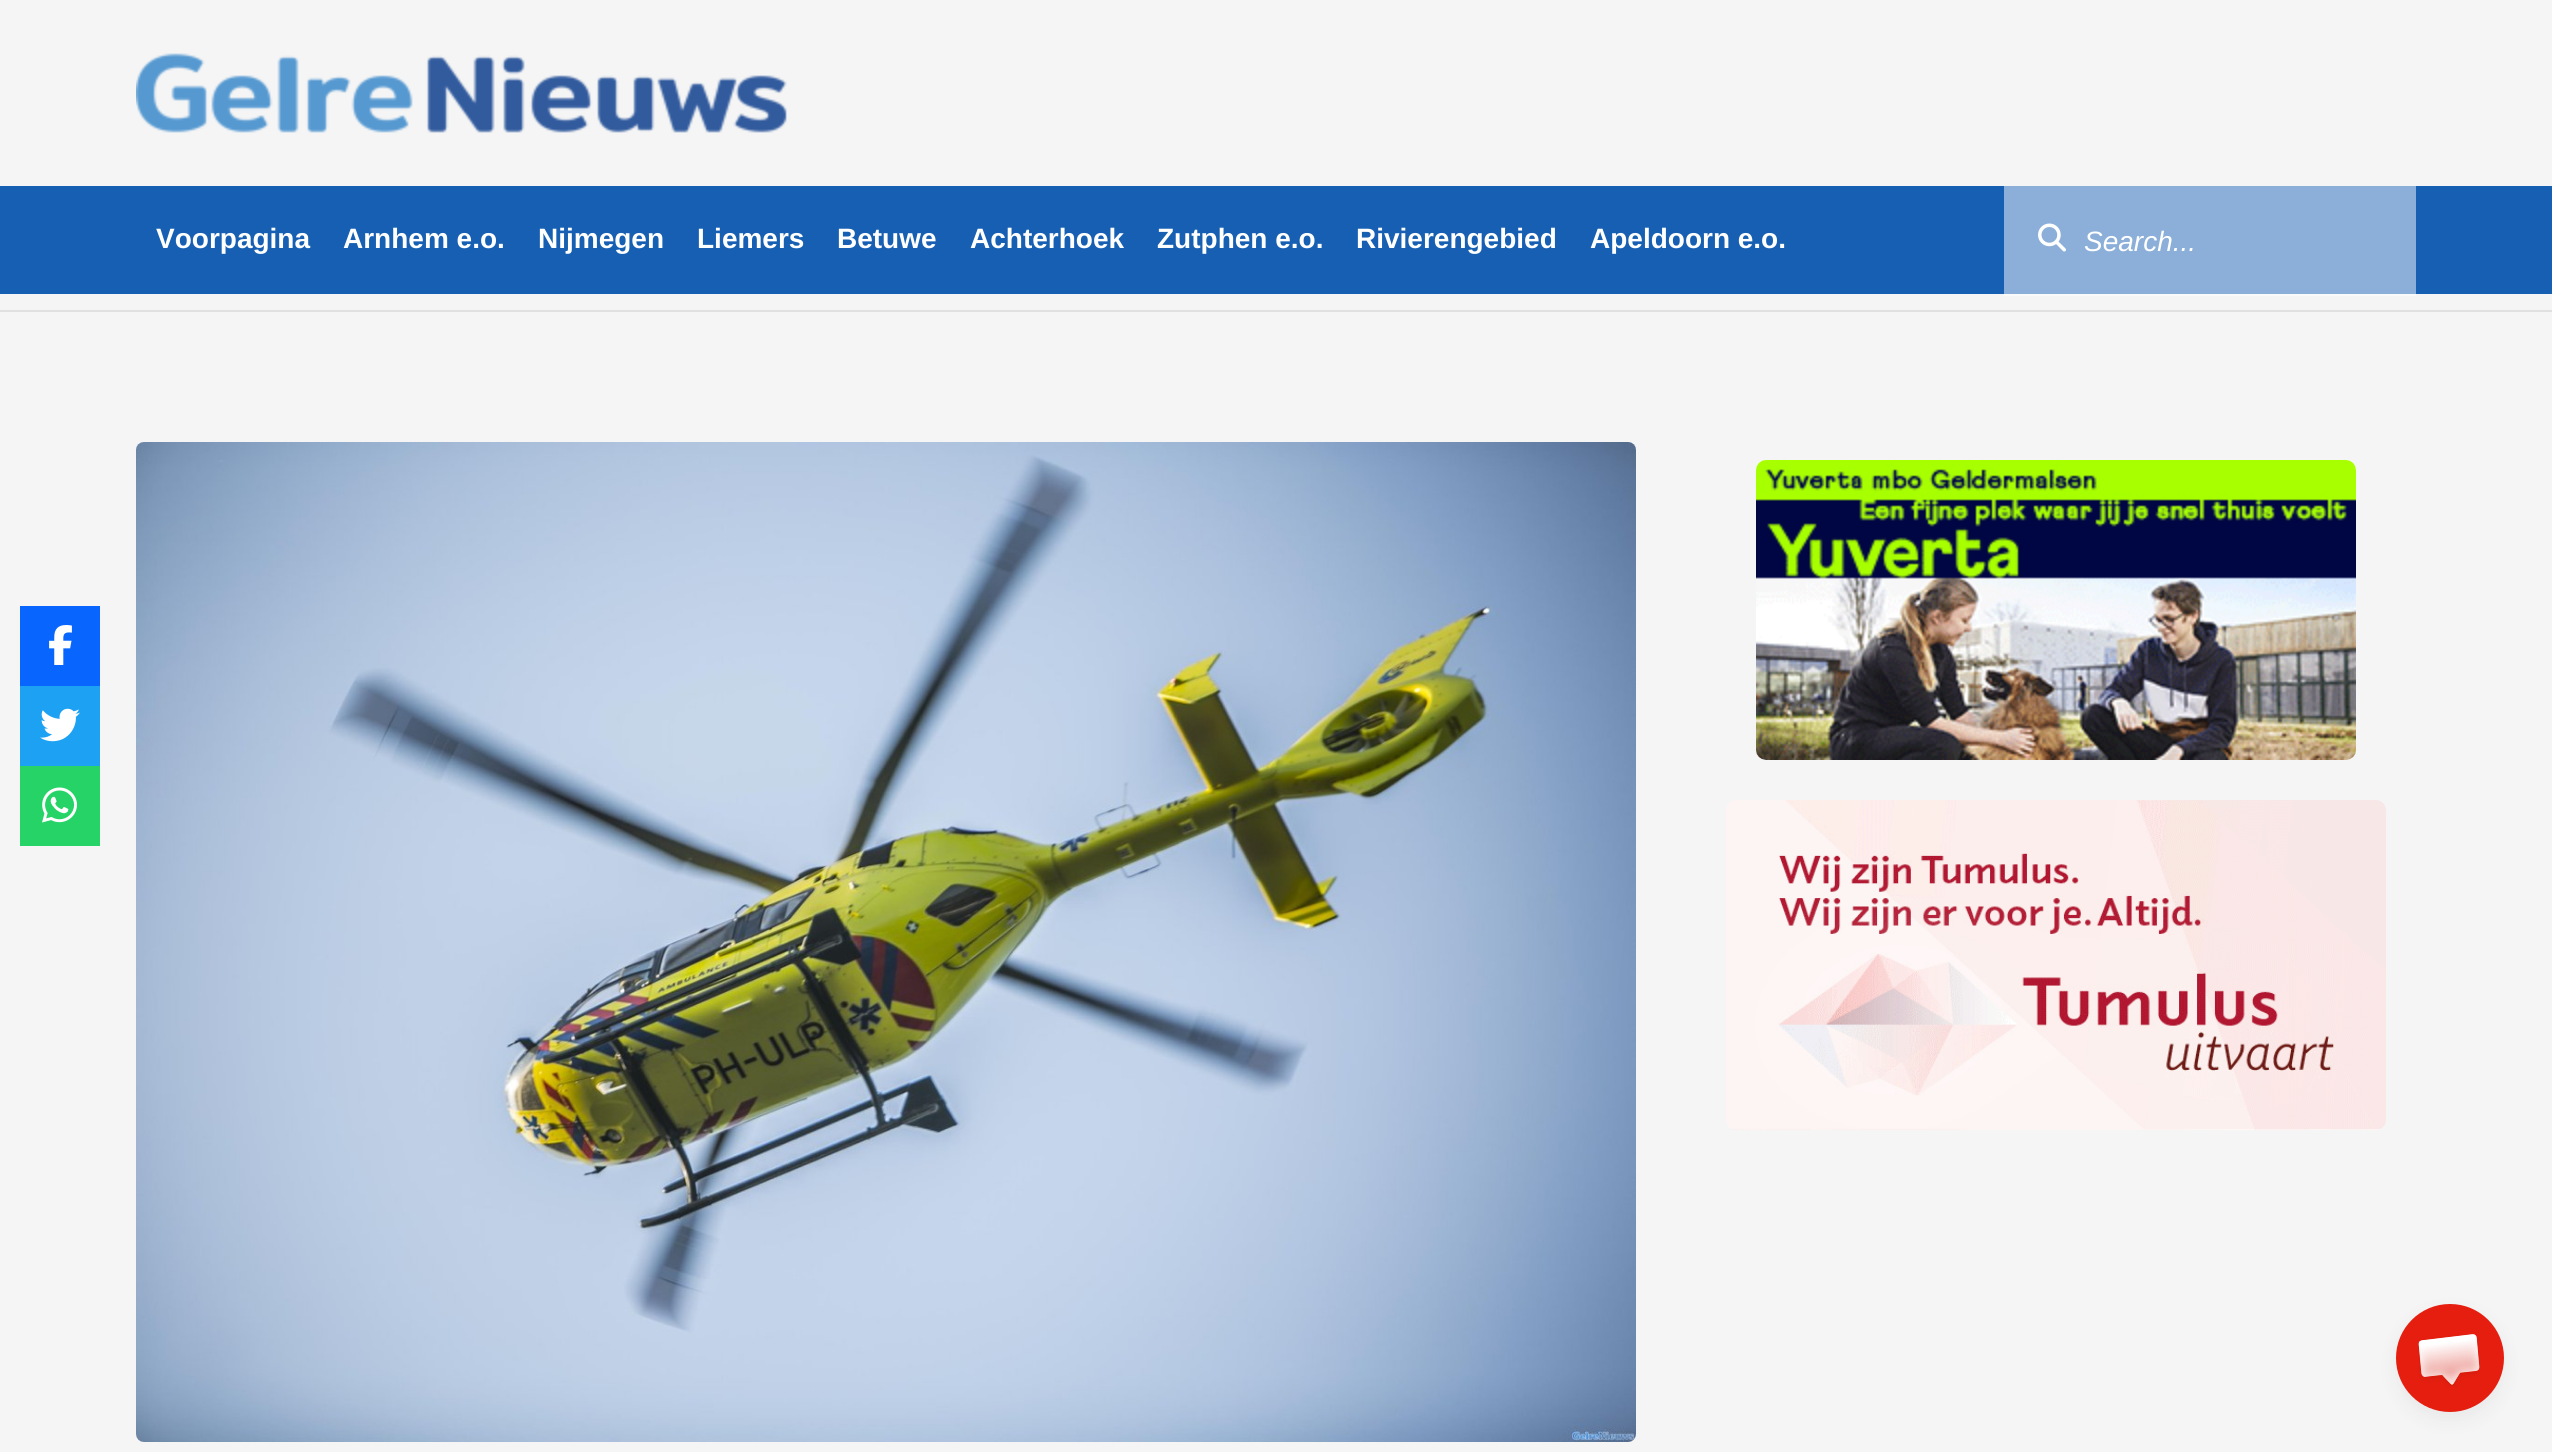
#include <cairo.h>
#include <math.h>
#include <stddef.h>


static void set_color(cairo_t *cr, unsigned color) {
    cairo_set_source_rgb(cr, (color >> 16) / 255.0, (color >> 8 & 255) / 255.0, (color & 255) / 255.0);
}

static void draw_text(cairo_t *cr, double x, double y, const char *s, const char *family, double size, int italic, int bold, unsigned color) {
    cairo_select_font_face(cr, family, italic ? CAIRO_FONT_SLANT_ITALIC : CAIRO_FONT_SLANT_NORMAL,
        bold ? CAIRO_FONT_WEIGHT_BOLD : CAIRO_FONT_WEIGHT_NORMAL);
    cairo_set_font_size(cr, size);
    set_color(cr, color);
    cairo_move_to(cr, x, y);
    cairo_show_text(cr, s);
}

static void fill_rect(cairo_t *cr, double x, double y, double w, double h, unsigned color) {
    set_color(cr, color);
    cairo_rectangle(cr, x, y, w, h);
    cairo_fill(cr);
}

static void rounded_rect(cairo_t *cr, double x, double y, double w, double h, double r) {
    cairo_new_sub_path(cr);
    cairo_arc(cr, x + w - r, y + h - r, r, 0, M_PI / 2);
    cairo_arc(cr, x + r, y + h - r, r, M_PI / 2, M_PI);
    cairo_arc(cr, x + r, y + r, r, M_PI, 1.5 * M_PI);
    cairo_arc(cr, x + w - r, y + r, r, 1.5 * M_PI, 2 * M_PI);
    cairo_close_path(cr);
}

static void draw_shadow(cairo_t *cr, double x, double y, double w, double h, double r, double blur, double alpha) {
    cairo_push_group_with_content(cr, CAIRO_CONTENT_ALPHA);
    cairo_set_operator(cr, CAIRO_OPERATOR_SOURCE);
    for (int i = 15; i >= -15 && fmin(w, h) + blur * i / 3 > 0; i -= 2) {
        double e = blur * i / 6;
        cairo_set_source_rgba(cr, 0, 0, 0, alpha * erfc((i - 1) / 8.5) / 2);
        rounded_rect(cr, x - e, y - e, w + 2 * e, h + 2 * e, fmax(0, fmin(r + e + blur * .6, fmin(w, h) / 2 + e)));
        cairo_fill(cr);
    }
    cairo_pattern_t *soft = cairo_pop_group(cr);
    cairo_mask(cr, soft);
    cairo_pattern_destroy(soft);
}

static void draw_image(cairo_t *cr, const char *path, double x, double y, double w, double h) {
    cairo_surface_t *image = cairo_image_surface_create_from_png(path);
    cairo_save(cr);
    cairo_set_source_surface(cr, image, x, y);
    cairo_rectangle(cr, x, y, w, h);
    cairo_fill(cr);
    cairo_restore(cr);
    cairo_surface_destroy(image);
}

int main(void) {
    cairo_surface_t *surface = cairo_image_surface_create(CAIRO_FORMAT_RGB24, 2552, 1452);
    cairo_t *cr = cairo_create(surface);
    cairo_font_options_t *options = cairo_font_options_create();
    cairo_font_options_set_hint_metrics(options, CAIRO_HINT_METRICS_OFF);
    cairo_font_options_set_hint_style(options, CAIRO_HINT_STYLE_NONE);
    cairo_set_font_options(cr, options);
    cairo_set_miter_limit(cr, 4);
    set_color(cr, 0xF5F5F5);
    cairo_paint(cr);
    fill_rect(cr, 2004, 294, 412, 2, 0xFAFAFA);
    fill_rect(cr, 0, 310, 2552, 2, 0xE1E0E0);
    draw_image(cr, "assets/img1.png", 136, 53, 651, 80);
    fill_rect(cr, 0, 186, 2552, 108, 0x165FB2);
    fill_rect(cr, 2004, 186, 412, 108, 0x8BAFD9);
    draw_text(cr, 156, 248, "Voorpagina", "Liberation Sans", 28, 0, 1, 0xFFFFFF);
    draw_text(cr, 343, 248, "Arnhem e.o.", "Liberation Sans", 28, 0, 1, 0xFFFFFF);
    draw_text(cr, 538, 248, "Nijmegen", "Liberation Sans", 28, 0, 1, 0xFFFFFF);
    draw_text(cr, 697, 248, "Liemers", "Liberation Sans", 28, 0, 1, 0xFFFFFF);
    draw_text(cr, 837, 248, "Betuwe", "Liberation Sans", 28, 0, 1, 0xFFFFFF);
    draw_text(cr, 970, 248, "Achterhoek", "Liberation Sans", 28, 0, 1, 0xFFFFFF);
    draw_text(cr, 1157, 248, "Zutphen e.o.", "Liberation Sans", 28, 0, 1, 0xFFFFFF);
    draw_text(cr, 1356, 248, "Rivierengebied", "Liberation Sans", 28, 0, 1, 0xFFFFFF);
    draw_text(cr, 1590, 248, "Apeldoorn e.o.", "Liberation Sans", 28, 0, 1, 0xFFFFFF);
    draw_image(cr, "assets/img2.png", 2038, 223, 28, 29);
    draw_text(cr, 2084, 251, "Search...", "Liberation Sans", 28, 1, 0, 0xFFFFFF);
    fill_rect(cr, 20, 606, 80, 80, 0x0866FF);
    draw_image(cr, "assets/img3.png", 49, 625, 23, 40);
    fill_rect(cr, 20, 686, 80, 80, 0x1DA1F2);
    draw_image(cr, "assets/img4.png", 40, 708, 40, 34);
    fill_rect(cr, 20, 766, 80, 80, 0x25D366);
    draw_image(cr, "assets/img5.png", 42, 787, 35, 36);
    draw_image(cr, "assets/img6.png", 136, 442, 1500, 1000);
    draw_image(cr, "assets/img7.png", 1756, 460, 600, 300);
    draw_image(cr, "assets/img8.png", 1726, 800, 660, 330);
    set_color(cr, 0x000000);
    draw_shadow(cr, 2396, 1312, 108, 108, 54, 10, 0.05);
    set_color(cr, 0xE51E0F);
    cairo_arc(cr, 2450, 1358, 54, 0, 2 * M_PI);
    cairo_fill(cr);
    draw_image(cr, "assets/img9.png", 2418, 1334, 62, 53);
    cairo_surface_write_to_png(surface, "output.png");
    cairo_font_options_destroy(options);
    cairo_destroy(cr);
    cairo_surface_destroy(surface);
    return 0;
}
